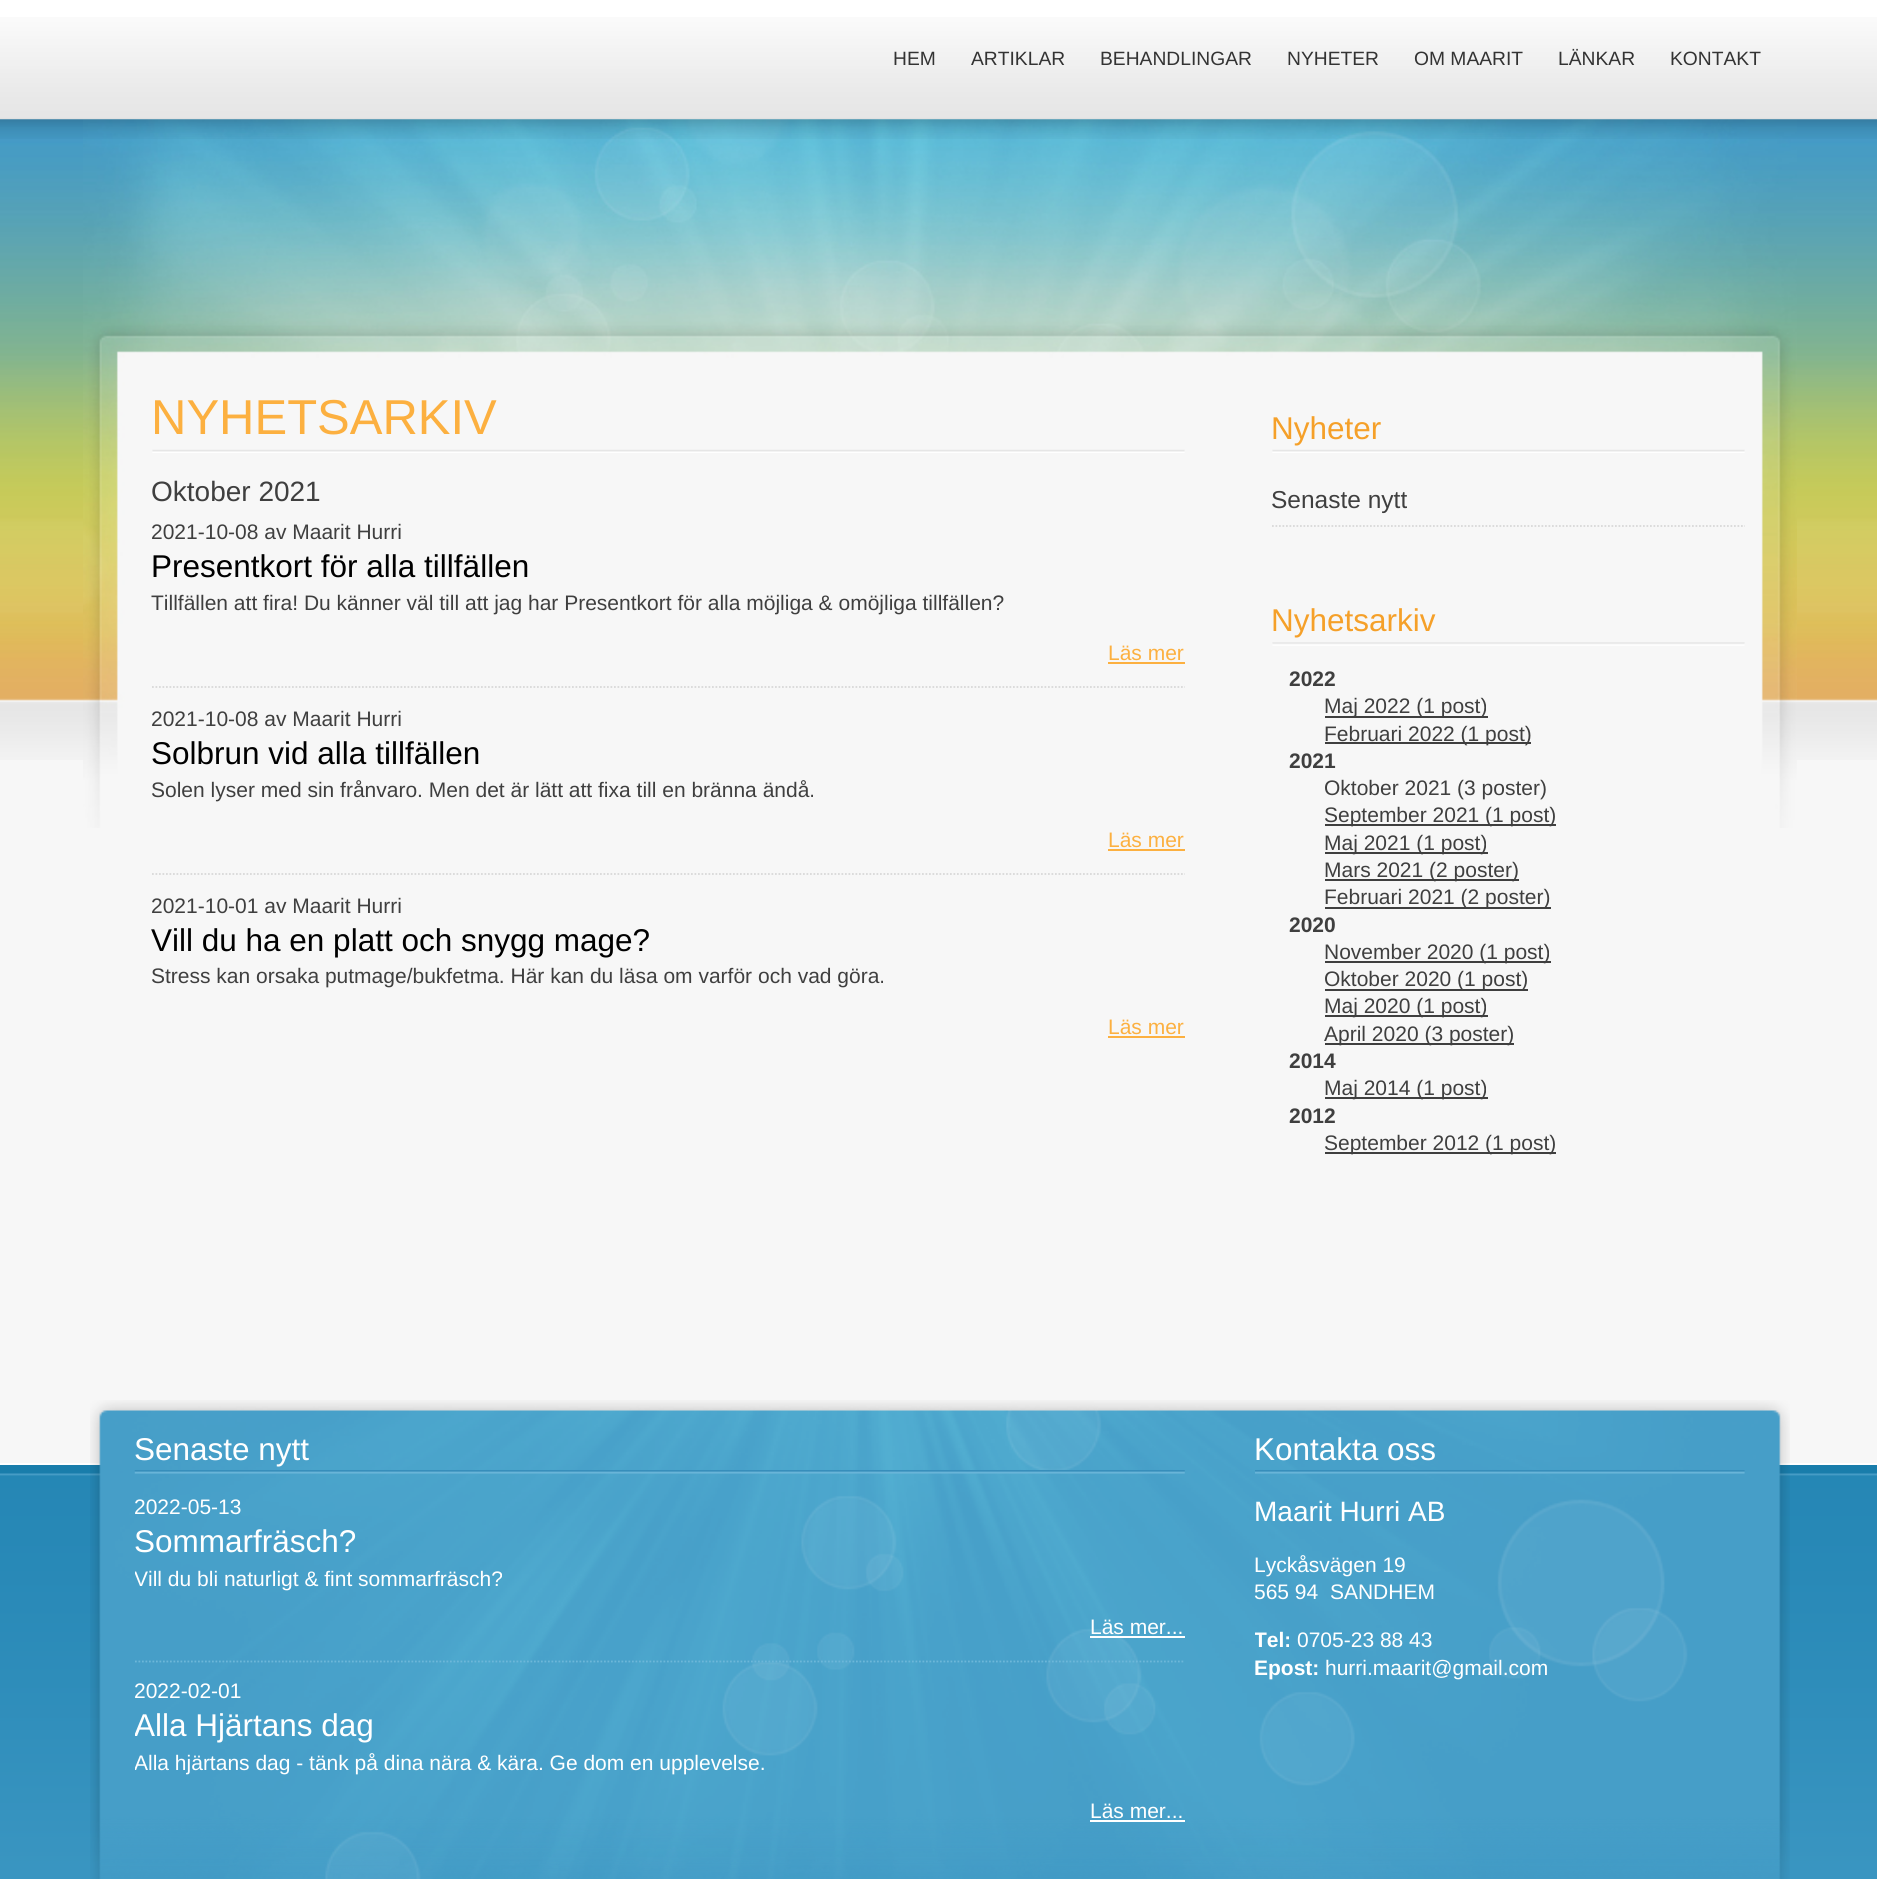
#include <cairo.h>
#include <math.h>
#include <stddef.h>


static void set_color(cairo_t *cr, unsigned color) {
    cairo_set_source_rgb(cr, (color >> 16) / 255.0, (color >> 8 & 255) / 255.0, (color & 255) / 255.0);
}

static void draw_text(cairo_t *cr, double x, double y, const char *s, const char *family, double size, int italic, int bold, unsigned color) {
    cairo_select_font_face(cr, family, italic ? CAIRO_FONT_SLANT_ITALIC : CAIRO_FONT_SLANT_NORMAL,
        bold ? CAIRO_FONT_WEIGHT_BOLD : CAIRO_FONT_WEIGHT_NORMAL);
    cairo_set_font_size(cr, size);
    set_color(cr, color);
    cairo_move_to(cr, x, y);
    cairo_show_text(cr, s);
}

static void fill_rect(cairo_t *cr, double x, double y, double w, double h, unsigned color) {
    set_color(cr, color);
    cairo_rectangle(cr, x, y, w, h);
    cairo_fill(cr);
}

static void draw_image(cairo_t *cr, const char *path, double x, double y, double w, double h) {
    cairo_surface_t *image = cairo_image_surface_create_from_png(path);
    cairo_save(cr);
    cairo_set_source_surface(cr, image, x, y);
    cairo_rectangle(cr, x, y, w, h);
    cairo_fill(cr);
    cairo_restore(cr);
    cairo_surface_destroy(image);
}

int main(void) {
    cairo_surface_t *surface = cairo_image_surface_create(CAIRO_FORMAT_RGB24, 1877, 1879);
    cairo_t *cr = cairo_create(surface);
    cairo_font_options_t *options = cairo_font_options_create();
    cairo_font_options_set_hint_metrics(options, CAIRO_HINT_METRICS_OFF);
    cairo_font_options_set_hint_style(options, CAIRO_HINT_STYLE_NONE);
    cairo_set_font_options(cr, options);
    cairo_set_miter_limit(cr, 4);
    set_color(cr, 0xFFFFFF);
    cairo_paint(cr);
    draw_image(cr, "assets/img2.png", 0, 119, 1877, 641);
    fill_rect(cr, 0, 760, 1877, 703, 0xF7F7F7);
    draw_image(cr, "assets/img3.png", 83, 119, 1714, 709);
    draw_image(cr, "assets/img1.png", 0, 17, 1877, 122);
    draw_text(cr, 893, 65, "HEM", "Liberation Sans", 19.25, 0, 0, 0x333333);
    draw_text(cr, 971, 65, "ARTIKLAR", "Liberation Sans", 19.25, 0, 0, 0x333333);
    draw_text(cr, 1100, 65, "BEHANDLINGAR", "Liberation Sans", 19.25, 0, 0, 0x333333);
    draw_text(cr, 1287, 65, "NYHETER", "Liberation Sans", 19.25, 0, 0, 0x333333);
    draw_text(cr, 1414, 65, "OM MAARIT", "Liberation Sans", 19.25, 0, 0, 0x333333);
    draw_text(cr, 1558, 65, "LÄNKAR", "Liberation Sans", 19.25, 0, 0, 0x333333);
    draw_text(cr, 1670, 65, "KONTAKT", "Liberation Sans", 19.25, 0, 0, 0x333333);
    draw_image(cr, "assets/img4.png", 152, 449, 1033, 4);
    draw_text(cr, 151, 434, "NYHETSARKIV", "Liberation Sans", 49, 0, 0, 0xFCB040);
    draw_text(cr, 151, 501, "Oktober 2021", "Liberation Sans", 28, 0, 0, 0x3F3F3F);
    cairo_save(cr);
    cairo_rectangle(cr, 152, 474, 1033, 604);
    cairo_clip(cr);
    cairo_new_path(cr);
    cairo_move_to(cr, 152, 687);
    cairo_line_to(cr, 1202, 687);
    set_color(cr, 0xD8D8D8);
    cairo_set_line_width(cr, 1.8);
    cairo_set_dash(cr, (double[]){1.75, 1.75}, 2, 0);
    cairo_stroke(cr);
    cairo_restore(cr);
    draw_text(cr, 151, 539, "2021-10-08 av Maarit Hurri", "Liberation Sans", 21, 0, 0, 0x3F3F3F);
    draw_text(cr, 151, 577, "Presentkort för alla tillfällen", "Liberation Sans", 31.5, 0, 0, 0x000000);
    draw_text(cr, 151, 610, "Tillfällen att fira! Du känner väl till att jag har Presentkort för alla möjliga & omöjliga tillfällen?", "Liberation Sans", 21, 0, 0, 0x3F3F3F);
    draw_text(cr, 1108, 660, "Läs mer", "Liberation Sans", 21, 0, 0, 0xFCB040);
    fill_rect(cr, 1108, 662, 77, 2, 0xFCB040);
    cairo_save(cr);
    cairo_rectangle(cr, 152, 474, 1033, 604);
    cairo_clip(cr);
    cairo_new_path(cr);
    cairo_move_to(cr, 152, 874);
    cairo_line_to(cr, 1202, 874);
    set_color(cr, 0xD8D8D8);
    cairo_set_line_width(cr, 1.8);
    cairo_set_dash(cr, (double[]){1.75, 1.75}, 2, 0);
    cairo_stroke(cr);
    cairo_restore(cr);
    draw_text(cr, 151, 726, "2021-10-08 av Maarit Hurri", "Liberation Sans", 21, 0, 0, 0x3F3F3F);
    draw_text(cr, 151, 764, "Solbrun vid alla tillfällen", "Liberation Sans", 31.5, 0, 0, 0x000000);
    draw_text(cr, 151, 797, "Solen lyser med sin frånvaro. Men det är lätt att fixa till en bränna ändå.", "Liberation Sans", 21, 0, 0, 0x3F3F3F);
    draw_text(cr, 1108, 847, "Läs mer", "Liberation Sans", 21, 0, 0, 0xFCB040);
    fill_rect(cr, 1108, 849, 77, 2, 0xFCB040);
    draw_text(cr, 151, 913, "2021-10-01 av Maarit Hurri", "Liberation Sans", 21, 0, 0, 0x3F3F3F);
    draw_text(cr, 151, 951, "Vill du ha en platt och snygg mage?", "Liberation Sans", 31.5, 0, 0, 0x000000);
    draw_text(cr, 151, 983, "Stress kan orsaka putmage/bukfetma. Här kan du läsa om varför och vad göra.", "Liberation Sans", 21, 0, 0, 0x3F3F3F);
    draw_text(cr, 1108, 1034, "Läs mer", "Liberation Sans", 21, 0, 0, 0xFCB040);
    fill_rect(cr, 1108, 1036, 77, 2, 0xFCB040);
    draw_image(cr, "assets/img5.png", 1272, 449, 473, 4);
    draw_text(cr, 1271, 439, "Nyheter", "Liberation Sans", 31.5, 0, 0, 0xF5A029);
    cairo_new_path(cr);
    cairo_move_to(cr, 1272, 526);
    cairo_line_to(cr, 1745, 526);
    set_color(cr, 0xD8D8D8);
    cairo_set_line_width(cr, 1.8);
    cairo_set_dash(cr, (double[]){1.75, 1.75}, 2, 0);
    cairo_stroke(cr);
    draw_text(cr, 1271, 508, "Senaste nytt", "Liberation Sans", 24.5, 0, 0, 0x3F3F3F);
    draw_image(cr, "assets/img6.png", 1272, 642, 473, 4);
    draw_text(cr, 1271, 631, "Nyhetsarkiv", "Liberation Sans", 31.5, 0, 0, 0xF5A029);
    draw_text(cr, 1289, 686, "2022", "Liberation Sans", 21, 0, 1, 0x3F3F3F);
    fill_rect(cr, 1325, 716, 163, 2, 0x3F3F3F);
    draw_text(cr, 1324, 713, "Maj 2022 (1 post)", "Liberation Sans", 21, 0, 0, 0x3F3F3F);
    fill_rect(cr, 1325, 742, 206, 2, 0x3F3F3F);
    draw_text(cr, 1324, 741, "Februari 2022 (1 post)", "Liberation Sans", 21, 0, 0, 0x3F3F3F);
    draw_text(cr, 1289, 768, "2021", "Liberation Sans", 21, 0, 1, 0x3F3F3F);
    draw_text(cr, 1324, 795, "Oktober 2021 (3 poster)", "Liberation Sans", 21, 0, 0, 0x3F3F3F);
    fill_rect(cr, 1325, 824, 231, 2, 0x3F3F3F);
    draw_text(cr, 1324, 822, "September 2021 (1 post)", "Liberation Sans", 21, 0, 0, 0x3F3F3F);
    fill_rect(cr, 1325, 852, 163, 2, 0x3F3F3F);
    draw_text(cr, 1324, 850, "Maj 2021 (1 post)", "Liberation Sans", 21, 0, 0, 0x3F3F3F);
    fill_rect(cr, 1325, 879, 194, 2, 0x3F3F3F);
    draw_text(cr, 1324, 877, "Mars 2021 (2 poster)", "Liberation Sans", 21, 0, 0, 0x3F3F3F);
    fill_rect(cr, 1325, 907, 226, 2, 0x3F3F3F);
    draw_text(cr, 1324, 904, "Februari 2021 (2 poster)", "Liberation Sans", 21, 0, 0, 0x3F3F3F);
    draw_text(cr, 1289, 932, "2020", "Liberation Sans", 21, 0, 1, 0x3F3F3F);
    fill_rect(cr, 1325, 961, 226, 2, 0x3F3F3F);
    draw_text(cr, 1324, 959, "November 2020 (1 post)", "Liberation Sans", 21, 0, 0, 0x3F3F3F);
    fill_rect(cr, 1325, 989, 203, 2, 0x3F3F3F);
    draw_text(cr, 1324, 986, "Oktober 2020 (1 post)", "Liberation Sans", 21, 0, 0, 0x3F3F3F);
    fill_rect(cr, 1325, 1015, 163, 2, 0x3F3F3F);
    draw_text(cr, 1324, 1013, "Maj 2020 (1 post)", "Liberation Sans", 21, 0, 0, 0x3F3F3F);
    fill_rect(cr, 1325, 1043, 189, 2, 0x3F3F3F);
    draw_text(cr, 1324, 1041, "April 2020 (3 poster)", "Liberation Sans", 21, 0, 0, 0x3F3F3F);
    draw_text(cr, 1289, 1068, "2014", "Liberation Sans", 21, 0, 1, 0x3F3F3F);
    fill_rect(cr, 1325, 1097, 163, 2, 0x3F3F3F);
    draw_text(cr, 1324, 1095, "Maj 2014 (1 post)", "Liberation Sans", 21, 0, 0, 0x3F3F3F);
    draw_text(cr, 1289, 1123, "2012", "Liberation Sans", 21, 0, 1, 0x3F3F3F);
    fill_rect(cr, 1325, 1152, 231, 2, 0x3F3F3F);
    draw_text(cr, 1324, 1150, "September 2012 (1 post)", "Liberation Sans", 21, 0, 0, 0x3F3F3F);
    draw_image(cr, "assets/img7.png", 0, 1465, 1877, 414);
    draw_image(cr, "assets/img8.png", 90, 1400, 1700, 479);
    draw_image(cr, "assets/img9.png", 134, 1470, 1051, 4);
    draw_text(cr, 134, 1460, "Senaste nytt", "Liberation Sans", 31.5, 0, 0, 0xFFFFFF);
    cairo_new_path(cr);
    cairo_move_to(cr, 135, 1661.5);
    cairo_line_to(cr, 1185, 1661.5);
    set_color(cr, 0x6DB7D9);
    cairo_stroke(cr);
    draw_text(cr, 134, 1514, "2022-05-13", "Liberation Sans", 21, 0, 0, 0xFFFFFF);
    draw_text(cr, 134, 1552, "Sommarfräsch?", "Liberation Sans", 31.5, 0, 0, 0xFFFFFF);
    cairo_save(cr);
    cairo_rectangle(cr, 135, 1495, 1050, 166);
    cairo_clip(cr);
    draw_text(cr, 134, 1586, "Vill du bli naturligt & fint sommarfräsch?", "Liberation Sans", 21, 0, 0, 0xFFFFFF);
    cairo_restore(cr);
    draw_text(cr, 1090, 1634, "Läs mer...", "Liberation Sans", 21, 0, 0, 0xFFFFFF);
    fill_rect(cr, 1090, 1636, 95, 2, 0xFFFFFF);
    draw_text(cr, 134, 1698, "2022-02-01", "Liberation Sans", 21, 0, 0, 0xFFFFFF);
    cairo_save(cr);
    cairo_rectangle(cr, 135, 1680, 1050, 165);
    cairo_clip(cr);
    draw_text(cr, 134, 1736, "Alla Hjärtans dag", "Liberation Sans", 31.5, 0, 0, 0xFFFFFF);
    draw_text(cr, 134, 1770, "Alla hjärtans dag - tänk på dina nära & kära. Ge dom en upplevelse.", "Liberation Sans", 21, 0, 0, 0xFFFFFF);
    cairo_restore(cr);
    draw_text(cr, 1090, 1818, "Läs mer...", "Liberation Sans", 21, 0, 0, 0xFFFFFF);
    fill_rect(cr, 1090, 1820, 95, 2, 0xFFFFFF);
    draw_image(cr, "assets/img10.png", 1255, 1470, 490, 4);
    draw_text(cr, 1254, 1460, "Kontakta oss", "Liberation Sans", 31.5, 0, 0, 0xFFFFFF);
    draw_text(cr, 1254, 1521, "Maarit Hurri AB", "Liberation Sans", 28, 0, 0, 0xFFFFFF);
    draw_text(cr, 1254, 1572, "Lyckåsvägen 19", "Liberation Sans", 21, 0, 0, 0xFFFFFF);
    draw_text(cr, 1254, 1599, "565 94  SANDHEM", "Liberation Sans", 21, 0, 0, 0xFFFFFF);
    cairo_save(cr);
    cairo_rectangle(cr, 1255, 1395, 490, 310);
    cairo_clip(cr);
    draw_text(cr, 1254, 1647, "Tel:", "Liberation Sans", 21, 0, 1, 0xFFFFFF);
    cairo_restore(cr);
    draw_text(cr, 1297, 1647, "0705-23 88 43", "Liberation Sans", 21, 0, 0, 0xFFFFFF);
    draw_text(cr, 1254, 1675, "Epost:", "Liberation Sans", 21, 0, 1, 0xFFFFFF);
    draw_text(cr, 1325, 1675, "hurri.maarit@gmail.com", "Liberation Sans", 21, 0, 0, 0xFFFFFF);
    cairo_surface_write_to_png(surface, "output.png");
    cairo_font_options_destroy(options);
    cairo_destroy(cr);
    cairo_surface_destroy(surface);
    return 0;
}
